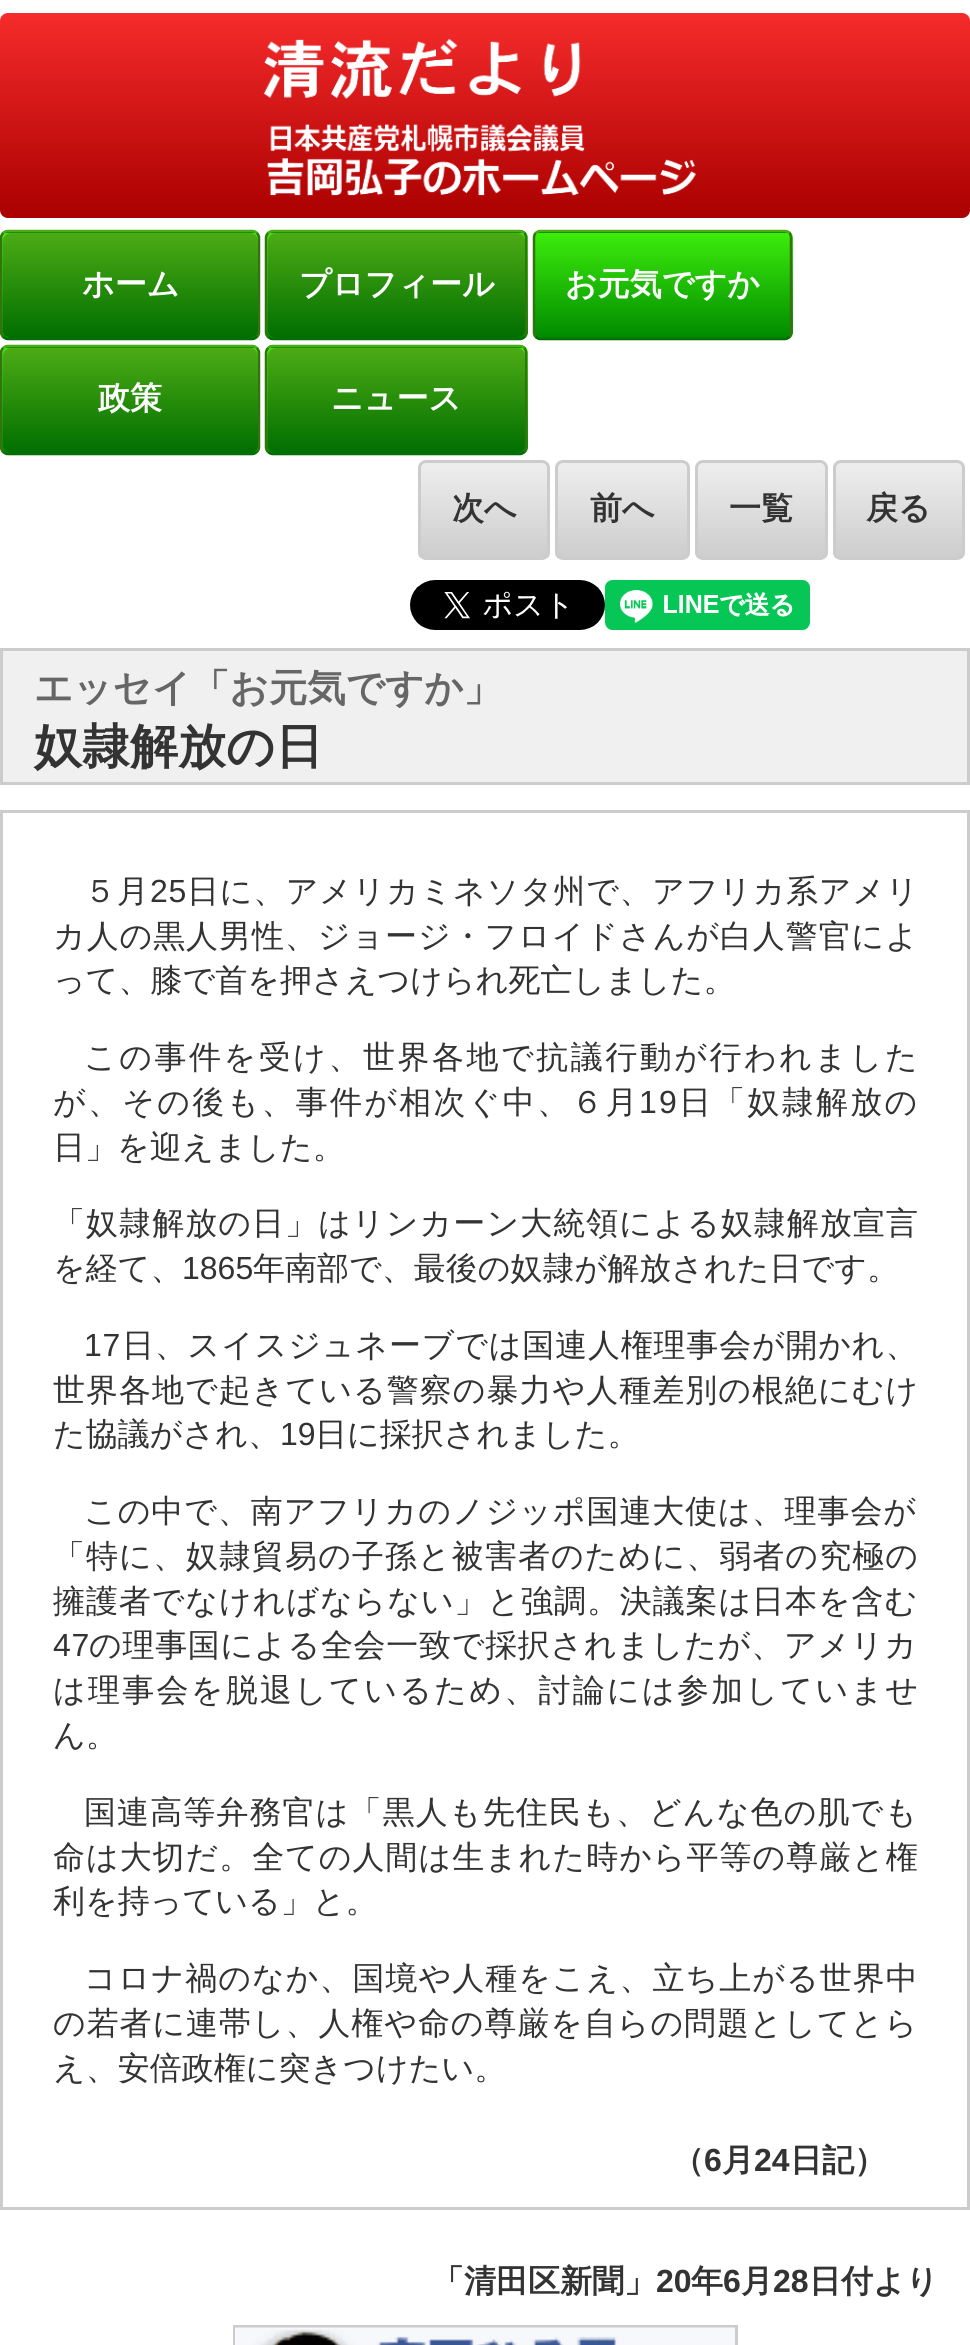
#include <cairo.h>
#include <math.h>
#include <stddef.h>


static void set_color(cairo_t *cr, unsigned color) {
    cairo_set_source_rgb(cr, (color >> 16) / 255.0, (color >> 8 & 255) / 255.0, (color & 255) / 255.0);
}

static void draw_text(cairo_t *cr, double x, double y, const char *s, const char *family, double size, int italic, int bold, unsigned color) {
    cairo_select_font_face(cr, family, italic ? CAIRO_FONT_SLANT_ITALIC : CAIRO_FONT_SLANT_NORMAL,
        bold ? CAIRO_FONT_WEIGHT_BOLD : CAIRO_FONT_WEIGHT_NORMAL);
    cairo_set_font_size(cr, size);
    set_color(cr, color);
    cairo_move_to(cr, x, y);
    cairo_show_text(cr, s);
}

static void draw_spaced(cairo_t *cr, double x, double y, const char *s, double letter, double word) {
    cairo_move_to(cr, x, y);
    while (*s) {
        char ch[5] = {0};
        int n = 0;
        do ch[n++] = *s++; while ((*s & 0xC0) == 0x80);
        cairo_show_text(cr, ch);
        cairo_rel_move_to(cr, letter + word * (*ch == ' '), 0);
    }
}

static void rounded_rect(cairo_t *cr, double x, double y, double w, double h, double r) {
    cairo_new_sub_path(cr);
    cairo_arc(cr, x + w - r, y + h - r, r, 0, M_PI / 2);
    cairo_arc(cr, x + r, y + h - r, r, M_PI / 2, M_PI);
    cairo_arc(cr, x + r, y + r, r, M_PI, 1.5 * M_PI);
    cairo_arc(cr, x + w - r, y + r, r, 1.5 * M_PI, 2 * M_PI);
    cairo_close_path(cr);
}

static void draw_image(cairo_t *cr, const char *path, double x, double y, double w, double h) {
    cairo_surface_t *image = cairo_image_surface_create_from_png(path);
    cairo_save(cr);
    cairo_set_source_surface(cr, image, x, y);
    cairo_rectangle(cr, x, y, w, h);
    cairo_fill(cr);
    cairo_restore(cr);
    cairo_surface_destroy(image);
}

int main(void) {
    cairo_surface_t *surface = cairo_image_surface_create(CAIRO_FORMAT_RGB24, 970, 2345);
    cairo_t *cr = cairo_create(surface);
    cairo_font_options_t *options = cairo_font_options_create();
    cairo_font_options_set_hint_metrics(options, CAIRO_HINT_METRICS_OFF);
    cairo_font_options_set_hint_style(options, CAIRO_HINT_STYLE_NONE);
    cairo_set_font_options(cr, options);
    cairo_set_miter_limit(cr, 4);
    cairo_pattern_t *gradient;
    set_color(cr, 0xFFFFFF);
    cairo_paint(cr);
    gradient = cairo_pattern_create_linear(485, 218, 485, 13);
    cairo_pattern_add_color_stop_rgba(gradient, 0, 0.667, 0, 0, 1);
    cairo_pattern_add_color_stop_rgba(gradient, 1, 0.965, 0.169, 0.169, 1);
    cairo_set_source(cr, gradient);
    cairo_pattern_destroy(gradient);
    rounded_rect(cr, 0, 13, 970, 205, 8);
    cairo_fill(cr);
    draw_image(cr, "assets/img1.png", 263, 38, 318, 61);
    draw_image(cr, "assets/img2.png", 267, 123, 429, 73);
    cairo_save(cr);
    rounded_rect(cr, 0, 230, 260, 110, 8);
    cairo_clip(cr);
    gradient = cairo_pattern_create_linear(130, 233, 130, 128);
    cairo_pattern_add_color_stop_rgba(gradient, 0, 0, 0.541, 0, 1);
    cairo_pattern_add_color_stop_rgba(gradient, 1, 0.235, 0.929, 0.043, 1);
    cairo_set_source(cr, gradient);
    cairo_pattern_destroy(gradient);
    cairo_rectangle(cr, 0, 230, 260, 3);
    cairo_fill(cr);
    gradient = cairo_pattern_create_linear(130, 338, 130, 233);
    cairo_pattern_add_color_stop_rgba(gradient, 0, 0, 0.541, 0, 1);
    cairo_pattern_add_color_stop_rgba(gradient, 1, 0.235, 0.929, 0.043, 1);
    cairo_set_source(cr, gradient);
    cairo_pattern_destroy(gradient);
    cairo_rectangle(cr, 0, 233, 260, 105);
    cairo_fill(cr);
    cairo_restore(cr);
    cairo_new_path(cr);
    cairo_move_to(cr, 3, 233);
    cairo_curve_to(cr, 4.5, 232, 6, 231, 7.5, 231);
    cairo_line_to(cr, 252.5, 231);
    cairo_curve_to(cr, 254, 231, 255.5, 232, 257, 233);
    set_color(cr, 0x4DAB15);
    cairo_set_line_width(cr, 2.5);
    cairo_stroke(cr);
    cairo_new_path(cr);
    cairo_move_to(cr, 257, 233);
    cairo_curve_to(cr, 258, 234.5, 259, 236, 259, 237.5);
    cairo_line_to(cr, 259, 332.5);
    cairo_curve_to(cr, 259, 334, 258, 335.5, 257, 337);
    set_color(cr, 0x34740E);
    cairo_stroke(cr);
    cairo_new_path(cr);
    cairo_move_to(cr, 257, 337);
    cairo_curve_to(cr, 255.5, 338, 254, 339, 252.5, 339);
    cairo_line_to(cr, 7.5, 339);
    cairo_curve_to(cr, 6, 339, 4.5, 338, 3, 337);
    set_color(cr, 0x006E00);
    cairo_stroke(cr);
    cairo_new_path(cr);
    cairo_move_to(cr, 3, 337);
    cairo_curve_to(cr, 2, 335.5, 1.5, 334, 1, 332.5);
    cairo_line_to(cr, 1, 237.5);
    cairo_curve_to(cr, 1, 236, 2, 234.5, 3, 233);
    set_color(cr, 0x34740E);
    cairo_stroke(cr);
    gradient = cairo_pattern_create_linear(130, 338, 130, 233);
    cairo_pattern_add_color_stop_rgba(gradient, 0, 0, 0.431, 0, 1);
    cairo_pattern_add_color_stop_rgba(gradient, 1, 0.302, 0.671, 0.082, 1);
    cairo_set_source(cr, gradient);
    cairo_pattern_destroy(gradient);
    rounded_rect(cr, 3, 233, 255, 105, 8);
    cairo_fill(cr);
    draw_text(cr, 82, 295, "ホーム", "WenQuanYi Zen Hei", 32, 0, 1, 0xFFFFFF);
    cairo_save(cr);
    rounded_rect(cr, 265, 230, 263, 110, 8);
    cairo_clip(cr);
    gradient = cairo_pattern_create_linear(396, 233, 396, 128);
    cairo_pattern_add_color_stop_rgba(gradient, 0, 0, 0.541, 0, 1);
    cairo_pattern_add_color_stop_rgba(gradient, 1, 0.235, 0.929, 0.043, 1);
    cairo_set_source(cr, gradient);
    cairo_pattern_destroy(gradient);
    cairo_rectangle(cr, 265, 230, 263, 3);
    cairo_fill(cr);
    gradient = cairo_pattern_create_linear(396, 338, 396, 233);
    cairo_pattern_add_color_stop_rgba(gradient, 0, 0, 0.541, 0, 1);
    cairo_pattern_add_color_stop_rgba(gradient, 1, 0.235, 0.929, 0.043, 1);
    cairo_set_source(cr, gradient);
    cairo_pattern_destroy(gradient);
    cairo_rectangle(cr, 265, 233, 263, 105);
    cairo_fill(cr);
    gradient = cairo_pattern_create_linear(396, 443, 396, 338);
    cairo_pattern_add_color_stop_rgba(gradient, 0, 0, 0.541, 0, 1);
    cairo_pattern_add_color_stop_rgba(gradient, 1, 0.235, 0.929, 0.043, 1);
    cairo_set_source(cr, gradient);
    cairo_pattern_destroy(gradient);
    cairo_rectangle(cr, 265, 338, 263, 2);
    cairo_fill(cr);
    cairo_restore(cr);
    cairo_new_path(cr);
    cairo_move_to(cr, 268, 233);
    cairo_curve_to(cr, 269.5, 232, 271, 231, 272.5, 231);
    cairo_line_to(cr, 520, 231);
    cairo_curve_to(cr, 521.5, 231, 523, 232, 524.5, 233);
    set_color(cr, 0x4DAB15);
    cairo_stroke(cr);
    cairo_new_path(cr);
    cairo_move_to(cr, 524.5, 233);
    cairo_curve_to(cr, 525.5, 234.5, 526, 236, 526, 237.5);
    cairo_line_to(cr, 526, 332.5);
    cairo_curve_to(cr, 526, 334, 525.5, 335.5, 524.5, 337);
    set_color(cr, 0x34740E);
    cairo_stroke(cr);
    cairo_new_path(cr);
    cairo_move_to(cr, 524.5, 337);
    cairo_curve_to(cr, 523, 338, 521.5, 339, 520, 339);
    cairo_line_to(cr, 272.5, 339);
    cairo_curve_to(cr, 271, 339, 269.5, 338, 268, 337);
    set_color(cr, 0x006E00);
    cairo_stroke(cr);
    cairo_new_path(cr);
    cairo_move_to(cr, 268, 337);
    cairo_curve_to(cr, 267, 335.5, 266, 334, 266, 332.5);
    cairo_line_to(cr, 266, 237.5);
    cairo_curve_to(cr, 266, 236, 267, 234.5, 268, 233);
    set_color(cr, 0x34740E);
    cairo_stroke(cr);
    gradient = cairo_pattern_create_linear(396, 338, 396, 233);
    cairo_pattern_add_color_stop_rgba(gradient, 0, 0, 0.431, 0, 1);
    cairo_pattern_add_color_stop_rgba(gradient, 1, 0.302, 0.671, 0.082, 1);
    cairo_set_source(cr, gradient);
    cairo_pattern_destroy(gradient);
    rounded_rect(cr, 268, 233, 257, 105, 8);
    cairo_fill(cr);
    draw_text(cr, 299, 295, "プロフィール", "WenQuanYi Zen Hei", 32, 0, 1, 0xFFFFFF);
    cairo_save(cr);
    rounded_rect(cr, 533, 230, 260, 110, 8);
    cairo_clip(cr);
    gradient = cairo_pattern_create_linear(663, 233, 663, 128);
    cairo_pattern_add_color_stop_rgba(gradient, 0, 0, 0.541, 0, 1);
    cairo_pattern_add_color_stop_rgba(gradient, 1, 0.235, 0.929, 0.043, 1);
    cairo_set_source(cr, gradient);
    cairo_pattern_destroy(gradient);
    cairo_rectangle(cr, 533, 230, 260, 3);
    cairo_fill(cr);
    gradient = cairo_pattern_create_linear(663, 338, 663, 233);
    cairo_pattern_add_color_stop_rgba(gradient, 0, 0, 0.541, 0, 1);
    cairo_pattern_add_color_stop_rgba(gradient, 1, 0.235, 0.929, 0.043, 1);
    cairo_set_source(cr, gradient);
    cairo_pattern_destroy(gradient);
    cairo_rectangle(cr, 533, 233, 260, 105);
    cairo_fill(cr);
    gradient = cairo_pattern_create_linear(663, 443, 663, 338);
    cairo_pattern_add_color_stop_rgba(gradient, 0, 0, 0.541, 0, 1);
    cairo_pattern_add_color_stop_rgba(gradient, 1, 0.235, 0.929, 0.043, 1);
    cairo_set_source(cr, gradient);
    cairo_pattern_destroy(gradient);
    cairo_rectangle(cr, 533, 338, 260, 2);
    cairo_fill(cr);
    cairo_restore(cr);
    cairo_new_path(cr);
    cairo_move_to(cr, 535.5, 233);
    cairo_curve_to(cr, 537, 232, 538.5, 231, 540, 231);
    cairo_line_to(cr, 785, 231);
    cairo_curve_to(cr, 786.5, 231, 788, 232, 789.5, 233);
    set_color(cr, 0x4DAB15);
    cairo_stroke(cr);
    cairo_new_path(cr);
    cairo_move_to(cr, 789.5, 233);
    cairo_curve_to(cr, 790.5, 234.5, 791, 236, 791, 237.5);
    cairo_line_to(cr, 791, 332.5);
    cairo_curve_to(cr, 791, 334, 790.5, 335.5, 789.5, 337);
    set_color(cr, 0x34740E);
    cairo_stroke(cr);
    cairo_new_path(cr);
    cairo_move_to(cr, 789.5, 337);
    cairo_curve_to(cr, 788, 338, 786.5, 339, 785, 339);
    cairo_line_to(cr, 540, 339);
    cairo_curve_to(cr, 538.5, 339, 537, 338, 535.5, 337);
    set_color(cr, 0x006E00);
    cairo_stroke(cr);
    cairo_new_path(cr);
    cairo_move_to(cr, 535.5, 337);
    cairo_curve_to(cr, 534.5, 335.5, 534, 334, 534, 332.5);
    cairo_line_to(cr, 534, 237.5);
    cairo_curve_to(cr, 534, 236, 534.5, 234.5, 535.5, 233);
    set_color(cr, 0x34740E);
    cairo_stroke(cr);
    draw_text(cr, 565, 295, "お元気ですか", "WenQuanYi Zen Hei", 32, 0, 1, 0xFFFFFF);
    cairo_save(cr);
    rounded_rect(cr, 0, 345, 260, 110, 8);
    cairo_clip(cr);
    gradient = cairo_pattern_create_linear(130, 348, 130, 243);
    cairo_pattern_add_color_stop_rgba(gradient, 0, 0, 0.541, 0, 1);
    cairo_pattern_add_color_stop_rgba(gradient, 1, 0.235, 0.929, 0.043, 1);
    cairo_set_source(cr, gradient);
    cairo_pattern_destroy(gradient);
    cairo_rectangle(cr, 0, 345, 260, 3);
    cairo_fill(cr);
    gradient = cairo_pattern_create_linear(130, 453, 130, 348);
    cairo_pattern_add_color_stop_rgba(gradient, 0, 0, 0.541, 0, 1);
    cairo_pattern_add_color_stop_rgba(gradient, 1, 0.235, 0.929, 0.043, 1);
    cairo_set_source(cr, gradient);
    cairo_pattern_destroy(gradient);
    cairo_rectangle(cr, 0, 348, 260, 105);
    cairo_fill(cr);
    cairo_restore(cr);
    cairo_new_path(cr);
    cairo_move_to(cr, 3, 348);
    cairo_curve_to(cr, 4.5, 347, 6, 346, 7.5, 346);
    cairo_line_to(cr, 252.5, 346);
    cairo_curve_to(cr, 254, 346, 255.5, 347, 257, 348);
    set_color(cr, 0x4DAB15);
    cairo_stroke(cr);
    cairo_new_path(cr);
    cairo_move_to(cr, 257, 348);
    cairo_curve_to(cr, 258, 349.5, 259, 351, 259, 352.5);
    cairo_line_to(cr, 259, 447.5);
    cairo_curve_to(cr, 259, 449, 258, 450.5, 257, 452);
    set_color(cr, 0x34740E);
    cairo_stroke(cr);
    cairo_new_path(cr);
    cairo_move_to(cr, 257, 452);
    cairo_curve_to(cr, 255.5, 453, 254, 454, 252.5, 454);
    cairo_line_to(cr, 7.5, 454);
    cairo_curve_to(cr, 6, 454, 4.5, 453, 3, 452);
    set_color(cr, 0x006E00);
    cairo_stroke(cr);
    cairo_new_path(cr);
    cairo_move_to(cr, 3, 452);
    cairo_curve_to(cr, 2, 450.5, 1.5, 449, 1, 447.5);
    cairo_line_to(cr, 1, 352.5);
    cairo_curve_to(cr, 1, 351, 2, 349.5, 3, 348);
    set_color(cr, 0x34740E);
    cairo_stroke(cr);
    gradient = cairo_pattern_create_linear(130, 453, 130, 348);
    cairo_pattern_add_color_stop_rgba(gradient, 0, 0, 0.431, 0, 1);
    cairo_pattern_add_color_stop_rgba(gradient, 1, 0.302, 0.671, 0.082, 1);
    cairo_set_source(cr, gradient);
    cairo_pattern_destroy(gradient);
    rounded_rect(cr, 3, 348, 255, 105, 8);
    cairo_fill(cr);
    draw_text(cr, 98, 409, "政策", "WenQuanYi Zen Hei", 32, 0, 1, 0xFFFFFF);
    cairo_save(cr);
    rounded_rect(cr, 265, 345, 263, 110, 8);
    cairo_clip(cr);
    gradient = cairo_pattern_create_linear(396, 348, 396, 243);
    cairo_pattern_add_color_stop_rgba(gradient, 0, 0, 0.541, 0, 1);
    cairo_pattern_add_color_stop_rgba(gradient, 1, 0.235, 0.929, 0.043, 1);
    cairo_set_source(cr, gradient);
    cairo_pattern_destroy(gradient);
    cairo_rectangle(cr, 265, 345, 263, 3);
    cairo_fill(cr);
    gradient = cairo_pattern_create_linear(396, 453, 396, 348);
    cairo_pattern_add_color_stop_rgba(gradient, 0, 0, 0.541, 0, 1);
    cairo_pattern_add_color_stop_rgba(gradient, 1, 0.235, 0.929, 0.043, 1);
    cairo_set_source(cr, gradient);
    cairo_pattern_destroy(gradient);
    cairo_rectangle(cr, 265, 348, 263, 105);
    cairo_fill(cr);
    gradient = cairo_pattern_create_linear(396, 558, 396, 453);
    cairo_pattern_add_color_stop_rgba(gradient, 0, 0, 0.541, 0, 1);
    cairo_pattern_add_color_stop_rgba(gradient, 1, 0.235, 0.929, 0.043, 1);
    cairo_set_source(cr, gradient);
    cairo_pattern_destroy(gradient);
    cairo_rectangle(cr, 265, 453, 263, 2);
    cairo_fill(cr);
    cairo_restore(cr);
    cairo_new_path(cr);
    cairo_move_to(cr, 268, 348);
    cairo_curve_to(cr, 269.5, 347, 271, 346, 272.5, 346);
    cairo_line_to(cr, 520, 346);
    cairo_curve_to(cr, 521.5, 346, 523, 347, 524.5, 348);
    set_color(cr, 0x4DAB15);
    cairo_stroke(cr);
    cairo_new_path(cr);
    cairo_move_to(cr, 524.5, 348);
    cairo_curve_to(cr, 525.5, 349.5, 526, 351, 526, 352.5);
    cairo_line_to(cr, 526, 447.5);
    cairo_curve_to(cr, 526, 449, 525.5, 450.5, 524.5, 452);
    set_color(cr, 0x34740E);
    cairo_stroke(cr);
    cairo_new_path(cr);
    cairo_move_to(cr, 524.5, 452);
    cairo_curve_to(cr, 523, 453, 521.5, 454, 520, 454);
    cairo_line_to(cr, 272.5, 454);
    cairo_curve_to(cr, 271, 454, 269.5, 453, 268, 452);
    set_color(cr, 0x006E00);
    cairo_stroke(cr);
    cairo_new_path(cr);
    cairo_move_to(cr, 268, 452);
    cairo_curve_to(cr, 267, 450.5, 266, 449, 266, 447.5);
    cairo_line_to(cr, 266, 352.5);
    cairo_curve_to(cr, 266, 351, 267, 349.5, 268, 348);
    set_color(cr, 0x34740E);
    cairo_stroke(cr);
    gradient = cairo_pattern_create_linear(396, 453, 396, 348);
    cairo_pattern_add_color_stop_rgba(gradient, 0, 0, 0.431, 0, 1);
    cairo_pattern_add_color_stop_rgba(gradient, 1, 0.302, 0.671, 0.082, 1);
    cairo_set_source(cr, gradient);
    cairo_pattern_destroy(gradient);
    rounded_rect(cr, 268, 348, 257, 105, 8);
    cairo_fill(cr);
    draw_text(cr, 331, 409, "ニュース", "WenQuanYi Zen Hei", 32, 0, 1, 0xFFFFFF);
    cairo_save(cr);
    rounded_rect(cr, 418, 460, 132, 100, 8);
    cairo_clip(cr);
    gradient = cairo_pattern_create_linear(484, 558, 484, 463);
    cairo_pattern_add_color_stop_rgba(gradient, 0, 0.804, 0.804, 0.804, 1);
    cairo_pattern_add_color_stop_rgba(gradient, 1, 0.933, 0.933, 0.933, 1);
    cairo_set_source(cr, gradient);
    cairo_pattern_destroy(gradient);
    cairo_rectangle(cr, 418, 463, 132, 95);
    cairo_fill(cr);
    cairo_restore(cr);
    rounded_rect(cr, 419.5, 461.5, 129, 97, 6.5);
    set_color(cr, 0xCCCCCC);
    cairo_set_line_width(cr, 3);
    cairo_stroke(cr);
    draw_text(cr, 452, 519, "次へ", "WenQuanYi Zen Hei", 32, 0, 1, 0x333333);
    cairo_save(cr);
    rounded_rect(cr, 555, 460, 135, 100, 8);
    cairo_clip(cr);
    gradient = cairo_pattern_create_linear(623, 558, 623, 463);
    cairo_pattern_add_color_stop_rgba(gradient, 0, 0.804, 0.804, 0.804, 1);
    cairo_pattern_add_color_stop_rgba(gradient, 1, 0.933, 0.933, 0.933, 1);
    cairo_set_source(cr, gradient);
    cairo_pattern_destroy(gradient);
    cairo_rectangle(cr, 555, 463, 135, 95);
    cairo_fill(cr);
    cairo_restore(cr);
    rounded_rect(cr, 556.5, 461.5, 132, 97, 6.5);
    set_color(cr, 0xCCCCCC);
    cairo_stroke(cr);
    draw_text(cr, 590, 519, "前へ", "WenQuanYi Zen Hei", 32, 0, 1, 0x333333);
    cairo_save(cr);
    rounded_rect(cr, 695, 460, 133, 100, 8);
    cairo_clip(cr);
    gradient = cairo_pattern_create_linear(761, 558, 761, 463);
    cairo_pattern_add_color_stop_rgba(gradient, 0, 0.804, 0.804, 0.804, 1);
    cairo_pattern_add_color_stop_rgba(gradient, 1, 0.933, 0.933, 0.933, 1);
    cairo_set_source(cr, gradient);
    cairo_pattern_destroy(gradient);
    cairo_rectangle(cr, 695, 463, 133, 95);
    cairo_fill(cr);
    cairo_restore(cr);
    rounded_rect(cr, 696.5, 461.5, 130, 97, 6.5);
    set_color(cr, 0xCCCCCC);
    cairo_stroke(cr);
    draw_text(cr, 729, 519, "一覧", "WenQuanYi Zen Hei", 32, 0, 1, 0x333333);
    cairo_save(cr);
    rounded_rect(cr, 833, 460, 132, 100, 8);
    cairo_clip(cr);
    gradient = cairo_pattern_create_linear(899, 558, 899, 463);
    cairo_pattern_add_color_stop_rgba(gradient, 0, 0.804, 0.804, 0.804, 1);
    cairo_pattern_add_color_stop_rgba(gradient, 1, 0.933, 0.933, 0.933, 1);
    cairo_set_source(cr, gradient);
    cairo_pattern_destroy(gradient);
    cairo_rectangle(cr, 833, 463, 132, 95);
    cairo_fill(cr);
    cairo_restore(cr);
    rounded_rect(cr, 834.5, 461.5, 129, 97, 6.5);
    set_color(cr, 0xCCCCCC);
    cairo_stroke(cr);
    draw_text(cr, 866, 519, "戻る", "WenQuanYi Zen Hei", 32, 0, 1, 0x333333);
    draw_image(cr, "assets/img3.png", 410, 580, 195, 50);
    draw_image(cr, "assets/img4.png", 605, 580, 205, 50);
    set_color(cr, 0xF0F0F0);
    cairo_rectangle(cr, 1.5, 649.5, 967, 134);
    cairo_fill_preserve(cr);
    set_color(cr, 0xCCCCCC);
    cairo_stroke(cr);
    draw_text(cr, 34, 701, "エッセイ「お元気ですか」", "WenQuanYi Zen Hei", 38.4, 0, 1, 0x666666);
    draw_text(cr, 34, 763, "奴隷解放の日", "WenQuanYi Zen Hei", 48, 0, 1, 0x333333);
    cairo_rectangle(cr, 1.5, 811.5, 967, 1397);
    set_color(cr, 0xCCCCCC);
    cairo_stroke(cr);
    cairo_select_font_face(cr, "WenQuanYi Zen Hei Medium", CAIRO_FONT_SLANT_NORMAL, CAIRO_FONT_WEIGHT_NORMAL);
    cairo_set_font_size(cr, 32);
    set_color(cr, 0x333333);
    draw_spaced(cr, 84, 902, "５月", 0.7, 0);
    cairo_select_font_face(cr, "Liberation Sans", CAIRO_FONT_SLANT_NORMAL, CAIRO_FONT_WEIGHT_NORMAL);
    draw_spaced(cr, 150, 902, "25", 0.7, 0);
    cairo_select_font_face(cr, "WenQuanYi Zen Hei Medium", CAIRO_FONT_SLANT_NORMAL, CAIRO_FONT_WEIGHT_NORMAL);
    draw_spaced(cr, 187, 902, "日に、アメリカミネソタ州で、アフリカ系アメリ", 0.7, 0);
    draw_spaced(cr, 53, 947, "カ人の黒人男性、ジョージ・フロイドさんが白人警官によ", 0.9, 0);
    draw_text(cr, 53, 991, "って、膝で首を押さえつけられ死亡しました。", "WenQuanYi Zen Hei Medium", 32, 0, 0, 0x333333);
    draw_spaced(cr, 84, 1068, "この事件を受け、世界各地で抗議行動が行われました", 2.5, 0);
    draw_spaced(cr, 53, 1113, "が、その後も、事件が相次ぐ中、６月", 2.25, 0);
    cairo_select_font_face(cr, "Liberation Sans", CAIRO_FONT_SLANT_NORMAL, CAIRO_FONT_WEIGHT_NORMAL);
    draw_spaced(cr, 639, 1113, "19", 2.25, 0);
    cairo_select_font_face(cr, "WenQuanYi Zen Hei Medium", CAIRO_FONT_SLANT_NORMAL, CAIRO_FONT_WEIGHT_NORMAL);
    draw_spaced(cr, 679, 1113, "日「奴隷解放の", 2.25, 0);
    draw_text(cr, 53, 1158, "日」を迎えました。", "WenQuanYi Zen Hei Medium", 32, 0, 0, 0x333333);
    draw_spaced(cr, 53, 1234, "「奴隷解放の日」はリンカーン大統領による奴隷解放宣言", 1.05, 0);
    draw_text(cr, 53, 1279, "を経て、", "WenQuanYi Zen Hei Medium", 32, 0, 0, 0x333333);
    draw_text(cr, 182, 1279, "1865", "Liberation Sans", 32, 0, 0, 0x333333);
    draw_text(cr, 253, 1279, "年南部で、最後の奴隷が解放された日です。", "WenQuanYi Zen Hei Medium", 32, 0, 0, 0x333333);
    cairo_select_font_face(cr, "Liberation Sans", CAIRO_FONT_SLANT_NORMAL, CAIRO_FONT_WEIGHT_NORMAL);
    draw_spaced(cr, 84, 1356, "17", 0.8, 0);
    cairo_select_font_face(cr, "WenQuanYi Zen Hei Medium", CAIRO_FONT_SLANT_NORMAL, CAIRO_FONT_WEIGHT_NORMAL);
    draw_spaced(cr, 122, 1356, "日、スイスジュネーブでは国連人権理事会が開かれ、", 0.8, 0);
    draw_spaced(cr, 53, 1401, "世界各地で起きている警察の暴力や人種差別の根絶にむけ", 1, 0);
    draw_text(cr, 53, 1445, "た協議がされ、", "WenQuanYi Zen Hei Medium", 32, 0, 0, 0x333333);
    draw_text(cr, 280, 1445, "19", "Liberation Sans", 32, 0, 0, 0x333333);
    draw_text(cr, 315, 1445, "日に採択されました。", "WenQuanYi Zen Hei Medium", 32, 0, 0, 0x333333);
    draw_spaced(cr, 84, 1522, "この中で、南アフリカのノジッポ国連大使は、理事会が", 0.9, 0);
    draw_spaced(cr, 53, 1567, "「特に、奴隷貿易の子孫と被害者のために、弱者の究極の", 1.05, 0);
    draw_spaced(cr, 53, 1612, "擁護者でなければならない」と強調。決議案は日本を含む", 0.9, 0);
    cairo_select_font_face(cr, "Liberation Sans", CAIRO_FONT_SLANT_NORMAL, CAIRO_FONT_WEIGHT_NORMAL);
    draw_spaced(cr, 53, 1656, "47", 0.7, 0);
    cairo_select_font_face(cr, "WenQuanYi Zen Hei Medium", CAIRO_FONT_SLANT_NORMAL, CAIRO_FONT_WEIGHT_NORMAL);
    draw_spaced(cr, 89, 1656, "の理事国による全会一致で採択されましたが、アメリカ", 0.7, 0);
    draw_spaced(cr, 53, 1701, "は理事会を脱退しているため、討論には参加していませ", 2.25, 0);
    draw_text(cr, 53, 1746, "ん。", "WenQuanYi Zen Hei Medium", 32, 0, 0, 0x333333);
    draw_spaced(cr, 84, 1823, "国連高等弁務官は「黒人も先住民も、どんな色の肌でも", 1.1, 0);
    draw_spaced(cr, 53, 1868, "命は大切だ。全ての人間は生まれた時から平等の尊厳と権", 0.95, 0);
    draw_text(cr, 53, 1912, "利を持っている」と。", "WenQuanYi Zen Hei Medium", 32, 0, 0, 0x333333);
    draw_spaced(cr, 84, 1989, "コロナ禍のなか、国境や人種をこえ、立ち上がる世界中", 1, 0);
    draw_spaced(cr, 53, 2034, "の若者に連帯し、人権や命の尊厳を自らの問題としてとら", 0.9, 0);
    draw_text(cr, 53, 2079, "え、安倍政権に突きつけたい。", "WenQuanYi Zen Hei Medium", 32, 0, 0, 0x333333);
    draw_text(cr, 672, 2171, "（", "WenQuanYi Zen Hei", 32, 0, 1, 0x333333);
    draw_text(cr, 704, 2171, "6", "Liberation Sans", 32, 0, 1, 0x333333);
    draw_text(cr, 722, 2171, "月", "WenQuanYi Zen Hei", 32, 0, 1, 0x333333);
    draw_text(cr, 754, 2171, "24", "Liberation Sans", 32, 0, 1, 0x333333);
    draw_text(cr, 790, 2171, "日記）", "WenQuanYi Zen Hei", 32, 0, 1, 0x333333);
    draw_text(cr, 432, 2292, "「清田区新聞」", "WenQuanYi Zen Hei", 32, 0, 1, 0x333333);
    draw_text(cr, 656, 2292, "20", "Liberation Sans", 32, 0, 1, 0x333333);
    draw_text(cr, 691, 2292, "年", "WenQuanYi Zen Hei", 32, 0, 1, 0x333333);
    draw_text(cr, 723, 2292, "6", "Liberation Sans", 32, 0, 1, 0x333333);
    draw_text(cr, 741, 2292, "月", "WenQuanYi Zen Hei", 32, 0, 1, 0x333333);
    draw_text(cr, 773, 2292, "28", "Liberation Sans", 32, 0, 1, 0x333333);
    draw_text(cr, 809, 2292, "日付より", "WenQuanYi Zen Hei", 32, 0, 1, 0x333333);
    cairo_rectangle(cr, 234.5, 2326.5, 502, 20);
    set_color(cr, 0xCCCCCC);
    cairo_stroke(cr);
    draw_image(cr, "assets/img5.png", 235, 2327, 500, 18);
    cairo_surface_write_to_png(surface, "output.png");
    cairo_font_options_destroy(options);
    cairo_destroy(cr);
    cairo_surface_destroy(surface);
    return 0;
}
